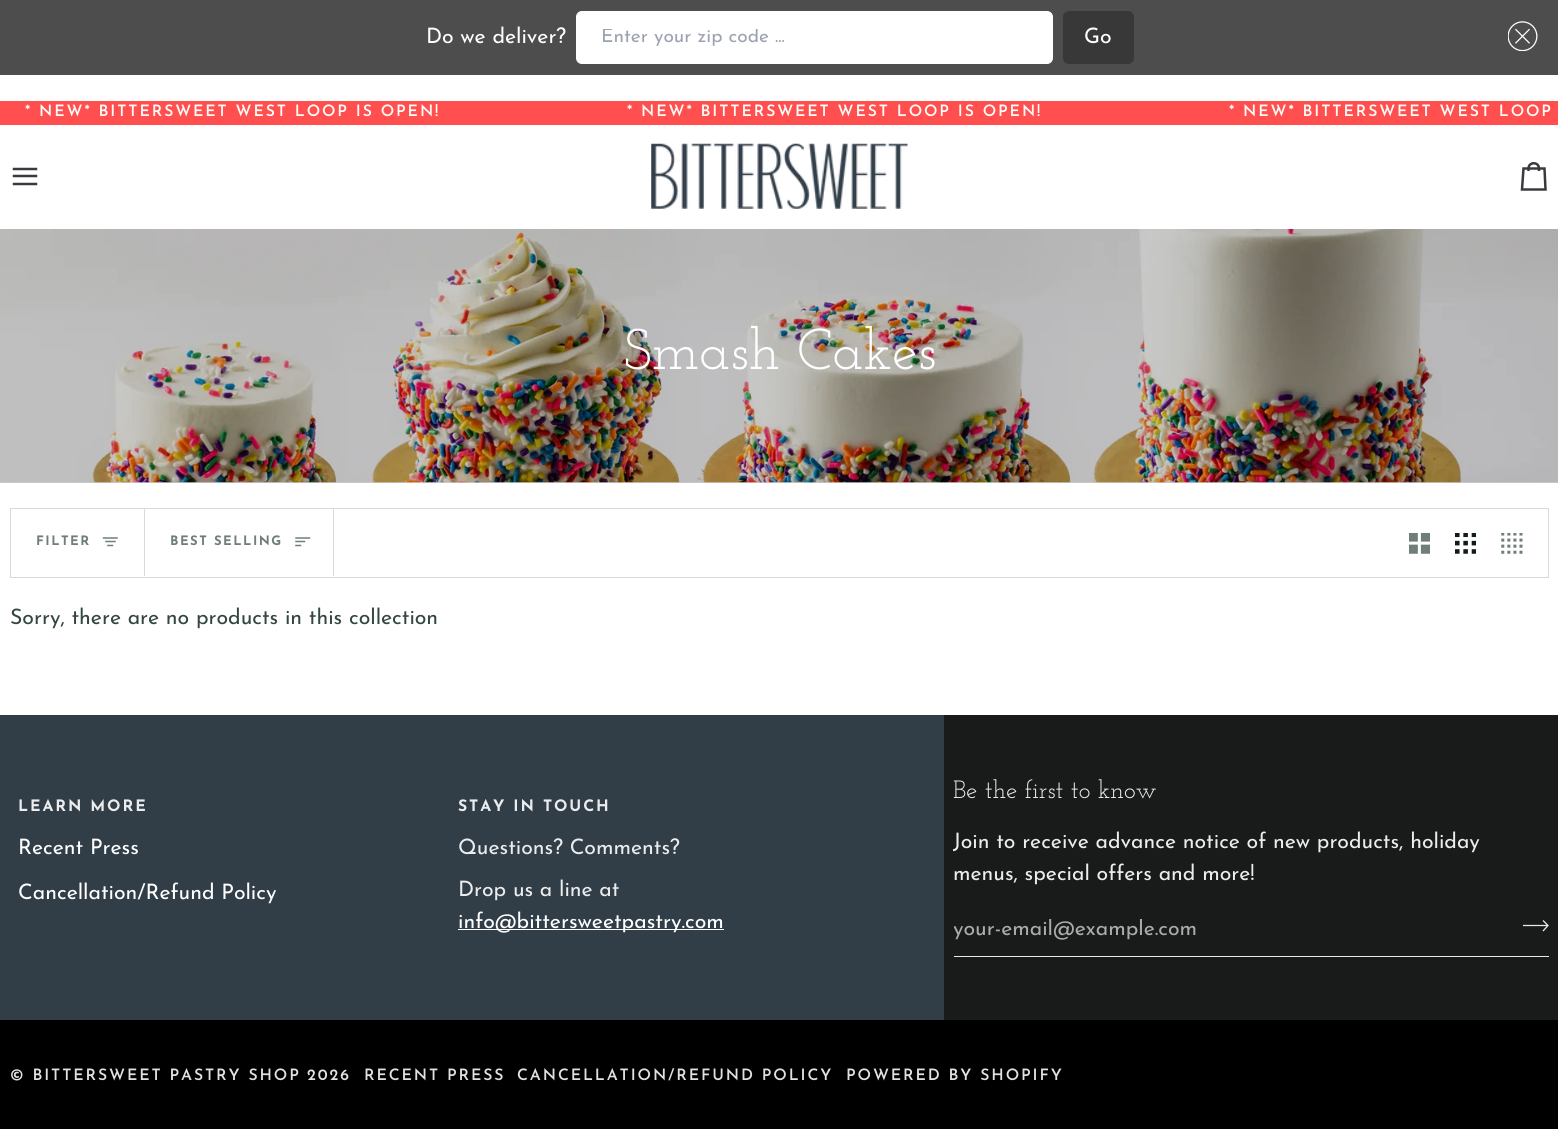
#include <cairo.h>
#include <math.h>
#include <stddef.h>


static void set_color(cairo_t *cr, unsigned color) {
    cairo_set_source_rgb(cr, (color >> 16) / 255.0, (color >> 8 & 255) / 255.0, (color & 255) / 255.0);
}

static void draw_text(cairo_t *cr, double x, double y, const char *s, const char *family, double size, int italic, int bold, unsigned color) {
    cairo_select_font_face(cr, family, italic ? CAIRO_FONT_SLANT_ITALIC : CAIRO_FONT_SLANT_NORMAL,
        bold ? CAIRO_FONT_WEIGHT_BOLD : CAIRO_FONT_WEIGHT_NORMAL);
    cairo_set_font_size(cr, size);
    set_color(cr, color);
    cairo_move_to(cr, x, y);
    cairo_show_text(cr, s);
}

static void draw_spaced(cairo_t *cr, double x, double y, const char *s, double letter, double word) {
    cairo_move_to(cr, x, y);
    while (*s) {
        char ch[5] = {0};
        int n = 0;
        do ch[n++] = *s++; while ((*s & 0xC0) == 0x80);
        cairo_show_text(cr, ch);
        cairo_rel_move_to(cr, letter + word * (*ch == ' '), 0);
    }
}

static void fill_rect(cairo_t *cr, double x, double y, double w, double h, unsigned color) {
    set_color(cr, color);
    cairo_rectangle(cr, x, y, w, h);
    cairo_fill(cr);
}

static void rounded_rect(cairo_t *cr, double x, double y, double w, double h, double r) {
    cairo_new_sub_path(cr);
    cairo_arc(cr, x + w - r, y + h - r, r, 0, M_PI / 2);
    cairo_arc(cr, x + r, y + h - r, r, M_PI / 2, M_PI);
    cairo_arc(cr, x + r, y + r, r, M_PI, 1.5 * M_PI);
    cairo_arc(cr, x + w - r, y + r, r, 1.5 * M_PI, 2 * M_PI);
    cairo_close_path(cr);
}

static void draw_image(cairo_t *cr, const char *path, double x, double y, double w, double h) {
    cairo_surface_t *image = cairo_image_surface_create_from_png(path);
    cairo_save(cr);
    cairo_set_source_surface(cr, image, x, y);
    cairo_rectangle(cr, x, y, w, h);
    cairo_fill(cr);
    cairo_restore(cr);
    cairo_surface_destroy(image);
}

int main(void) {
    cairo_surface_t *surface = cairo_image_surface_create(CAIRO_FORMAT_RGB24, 1558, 1129);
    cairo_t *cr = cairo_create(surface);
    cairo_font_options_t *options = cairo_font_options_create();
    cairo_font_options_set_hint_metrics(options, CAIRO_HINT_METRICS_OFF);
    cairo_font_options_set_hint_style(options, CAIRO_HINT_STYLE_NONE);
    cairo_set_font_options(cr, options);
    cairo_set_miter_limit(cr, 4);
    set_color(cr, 0xFFFFFF);
    cairo_paint(cr);
    fill_rect(cr, 0, 482, 1558, 1, 0xCCCCCC);
    fill_rect(cr, 0, 0, 1558, 75, 0x4D4D4D);
    draw_text(cr, 426, 43, "Do we deliver?", "Josefin Sans", 21.25, 0, 0, 0xFFFFFF);
    rounded_rect(cr, 576.5, 11.5, 476, 52, 5.5);
    cairo_fill_preserve(cr);
    cairo_set_line_width(cr, 1);
    cairo_stroke(cr);
    cairo_save(cr);
    cairo_rectangle(cr, 590, 29, 449, 19);
    cairo_clip(cr);
    draw_text(cr, 601, 42, "Enter your zip code ...", "Josefin Sans", 19.1, 0, 0, 0x9CA3AF);
    cairo_restore(cr);
    set_color(cr, 0x383838);
    rounded_rect(cr, 1063, 11, 71, 53, 6);
    cairo_fill(cr);
    draw_text(cr, 1084, 43, "Go", "Josefin Sans", 21.25, 0, 0, 0xFFFFFF);
    draw_image(cr, "assets/img1.png", 1508, 21, 30, 30);
    fill_rect(cr, 0, 101, 1558, 24, 0xFF4F4F);
    cairo_select_font_face(cr, "Josefin Sans SemiBold", CAIRO_FONT_SLANT_NORMAL, CAIRO_FONT_WEIGHT_NORMAL);
    cairo_set_font_size(cr, 15.75);
    set_color(cr, 0xFFFCF9);
    draw_spaced(cr, 25, 116, "* NEW* BITTERSWEET WEST LOOP IS OPEN!", 1.9, 0);
    draw_spaced(cr, 627, 116, "* NEW* BITTERSWEET WEST LOOP IS OPEN!", 1.9, 0);
    draw_spaced(cr, 1229, 116, "* NEW* BITTERSWEET WEST LOOP", 1.9, 0);
    cairo_new_path(cr);
    cairo_move_to(cr, 36, 169);
    cairo_line_to(cr, 14, 169);
    cairo_move_to(cr, 36, 176);
    cairo_line_to(cr, 14, 176);
    cairo_move_to(cr, 36, 184);
    cairo_line_to(cr, 14, 184);
    set_color(cr, 0x3A393E);
    cairo_set_line_width(cr, 2.5);
    cairo_set_line_cap(cr, CAIRO_LINE_CAP_SQUARE);
    cairo_stroke(cr);
    draw_image(cr, "assets/img2.png", 651, 143, 257, 66);
    cairo_new_path(cr);
    cairo_move_to(cr, 1539, 171);
    cairo_line_to(cr, 1539, 168.5);
    cairo_line_to(cr, 1544.5, 168.5);
    cairo_line_to(cr, 1545.5, 189.5);
    cairo_line_to(cr, 1522, 189.5);
    cairo_line_to(cr, 1523.5, 168.5);
    cairo_line_to(cr, 1528.5, 168.5);
    cairo_curve_to(cr, 1528.5, 161.5, 1539, 161.5, 1539, 168.5);
    cairo_line_to(cr, 1528.5, 168.5);
    cairo_line_to(cr, 1528.5, 171);
    cairo_set_line_cap(cr, CAIRO_LINE_CAP_BUTT);
    cairo_stroke(cr);
    draw_image(cr, "assets/img3.png", 0, 229, 1558, 254);
    draw_text(cr, 623, 369, "Smash Cakes", "Josefin Slab", 57.5, 0, 0, 0xFFFFFF);
    cairo_rectangle(cr, 10.5, 508.5, 1538, 69);
    set_color(cr, 0xD6DAD9);
    cairo_set_line_width(cr, 1);
    cairo_stroke(cr);
    fill_rect(cr, 144, 509, 1, 67, 0xD6DAD9);
    cairo_select_font_face(cr, "Josefin Sans", CAIRO_FONT_SLANT_NORMAL, CAIRO_FONT_WEIGHT_BOLD);
    cairo_set_font_size(cr, 13);
    set_color(cr, 0x707E7A);
    draw_spaced(cr, 36, 545, "FILTER", 1.5, 0);
    cairo_new_path(cr);
    cairo_move_to(cr, 117, 538);
    cairo_line_to(cr, 103.5, 538);
    cairo_move_to(cr, 115, 541.5);
    cairo_line_to(cr, 106, 541.5);
    cairo_move_to(cr, 112.5, 545.5);
    cairo_line_to(cr, 108, 545.5);
    cairo_set_line_width(cr, 1.5);
    cairo_set_line_cap(cr, CAIRO_LINE_CAP_SQUARE);
    cairo_stroke(cr);
    fill_rect(cr, 333, 509, 1, 67, 0xD6DAD9);
    set_color(cr, 0x707E7A);
    draw_spaced(cr, 170, 545, "BEST SELLING", 1.5, 0);
    cairo_new_path(cr);
    cairo_move_to(cr, 309.5, 538);
    cairo_line_to(cr, 296, 538);
    cairo_move_to(cr, 304.5, 541.5);
    cairo_line_to(cr, 296, 541.5);
    cairo_move_to(cr, 300.5, 545.5);
    cairo_line_to(cr, 296, 545.5);
    cairo_stroke(cr);
    draw_image(cr, "assets/img4.png", 1409, 533, 21, 21);
    draw_image(cr, "assets/img5.png", 1455, 533, 21, 21);
    draw_image(cr, "assets/img6.png", 1501, 533, 22, 21);
    draw_text(cr, 10, 624, "Sorry, there are no products in this collection", "Josefin Sans", 21.25, 0, 0, 0x334641);
    fill_rect(cr, 0, 715, 944, 305, 0x313E48);
    cairo_select_font_face(cr, "Josefin Sans", CAIRO_FONT_SLANT_NORMAL, CAIRO_FONT_WEIGHT_BOLD);
    cairo_set_font_size(cr, 15.75);
    set_color(cr, 0xEAECED);
    draw_spaced(cr, 18, 811, "LEARN MORE", 1.9, 0);
    draw_text(cr, 18, 854, "Recent Press", "Josefin Sans", 21.25, 0, 0, 0xFFFFFF);
    draw_text(cr, 18, 899, "Cancellation/Refund Policy", "Josefin Sans", 21.25, 0, 0, 0xFFFFFF);
    cairo_select_font_face(cr, "Josefin Sans", CAIRO_FONT_SLANT_NORMAL, CAIRO_FONT_WEIGHT_BOLD);
    cairo_set_font_size(cr, 15.75);
    set_color(cr, 0xEAECED);
    draw_spaced(cr, 458, 811, "STAY IN TOUCH", 1.9, 0);
    draw_text(cr, 458, 854, "Questions? Comments?", "Josefin Sans", 21.25, 0, 0, 0xEAECED);
    draw_text(cr, 458, 896, "Drop us a line at", "Josefin Sans", 21.25, 0, 0, 0xEAECED);
    fill_rect(cr, 458, 929, 266, 1, 0xFFFFFF);
    draw_text(cr, 458, 928, "info@bittersweetpastry.com", "Josefin Sans", 21.25, 0, 0, 0xFFFFFF);
    fill_rect(cr, 944, 715, 614, 305, 0x181B1A);
    draw_text(cr, 953, 798, "Be the first to know", "Josefin Slab", 25, 0, 0, 0xEAECED);
    draw_text(cr, 953, 848, "Join to receive advance notice of new products, holiday", "Josefin Sans", 21.25, 0, 0, 0xEAECED);
    draw_text(cr, 953, 880, "menus, special offers and more!", "Josefin Sans", 21.25, 0, 0, 0xEAECED);
    fill_rect(cr, 954, 956, 595, 1, 0xE8E8E8);
    cairo_save(cr);
    cairo_rectangle(cr, 954, 919, 541, 21);
    cairo_clip(cr);
    draw_text(cr, 953, 935, "your-email@example.com", "Josefin Sans", 21.25, 0, 0, 0xAAABAA);
    cairo_restore(cr);
    cairo_new_path(cr);
    cairo_move_to(cr, 1543, 920.5);
    cairo_line_to(cr, 1548, 925.5);
    cairo_line_to(cr, 1543, 931);
    cairo_move_to(cr, 1523, 925.5);
    cairo_line_to(cr, 1548, 925.5);
    cairo_set_line_width(cr, 1.3);
    cairo_set_line_cap(cr, CAIRO_LINE_CAP_BUTT);
    cairo_stroke(cr);
    fill_rect(cr, 0, 1020, 1558, 109, 0x000000);
    cairo_select_font_face(cr, "Josefin Sans SemiBold", CAIRO_FONT_SLANT_NORMAL, CAIRO_FONT_WEIGHT_NORMAL);
    cairo_set_font_size(cr, 15.75);
    set_color(cr, 0xE3E1DE);
    draw_spaced(cr, 10, 1080, "© BITTERSWEET PASTRY SHOP", 1.9, 0);
    draw_spaced(cr, 307, 1080, "2026", 1.9, 0);
    draw_spaced(cr, 364, 1080, "RECENT PRESS", 1.9, 0);
    draw_spaced(cr, 517, 1080, "CANCELLATION/REFUND POLICY", 1.9, 0);
    draw_spaced(cr, 846, 1080, "POWERED BY SHOPIFY", 1.9, 0);
    cairo_surface_write_to_png(surface, "output.png");
    cairo_font_options_destroy(options);
    cairo_destroy(cr);
    cairo_surface_destroy(surface);
    return 0;
}
